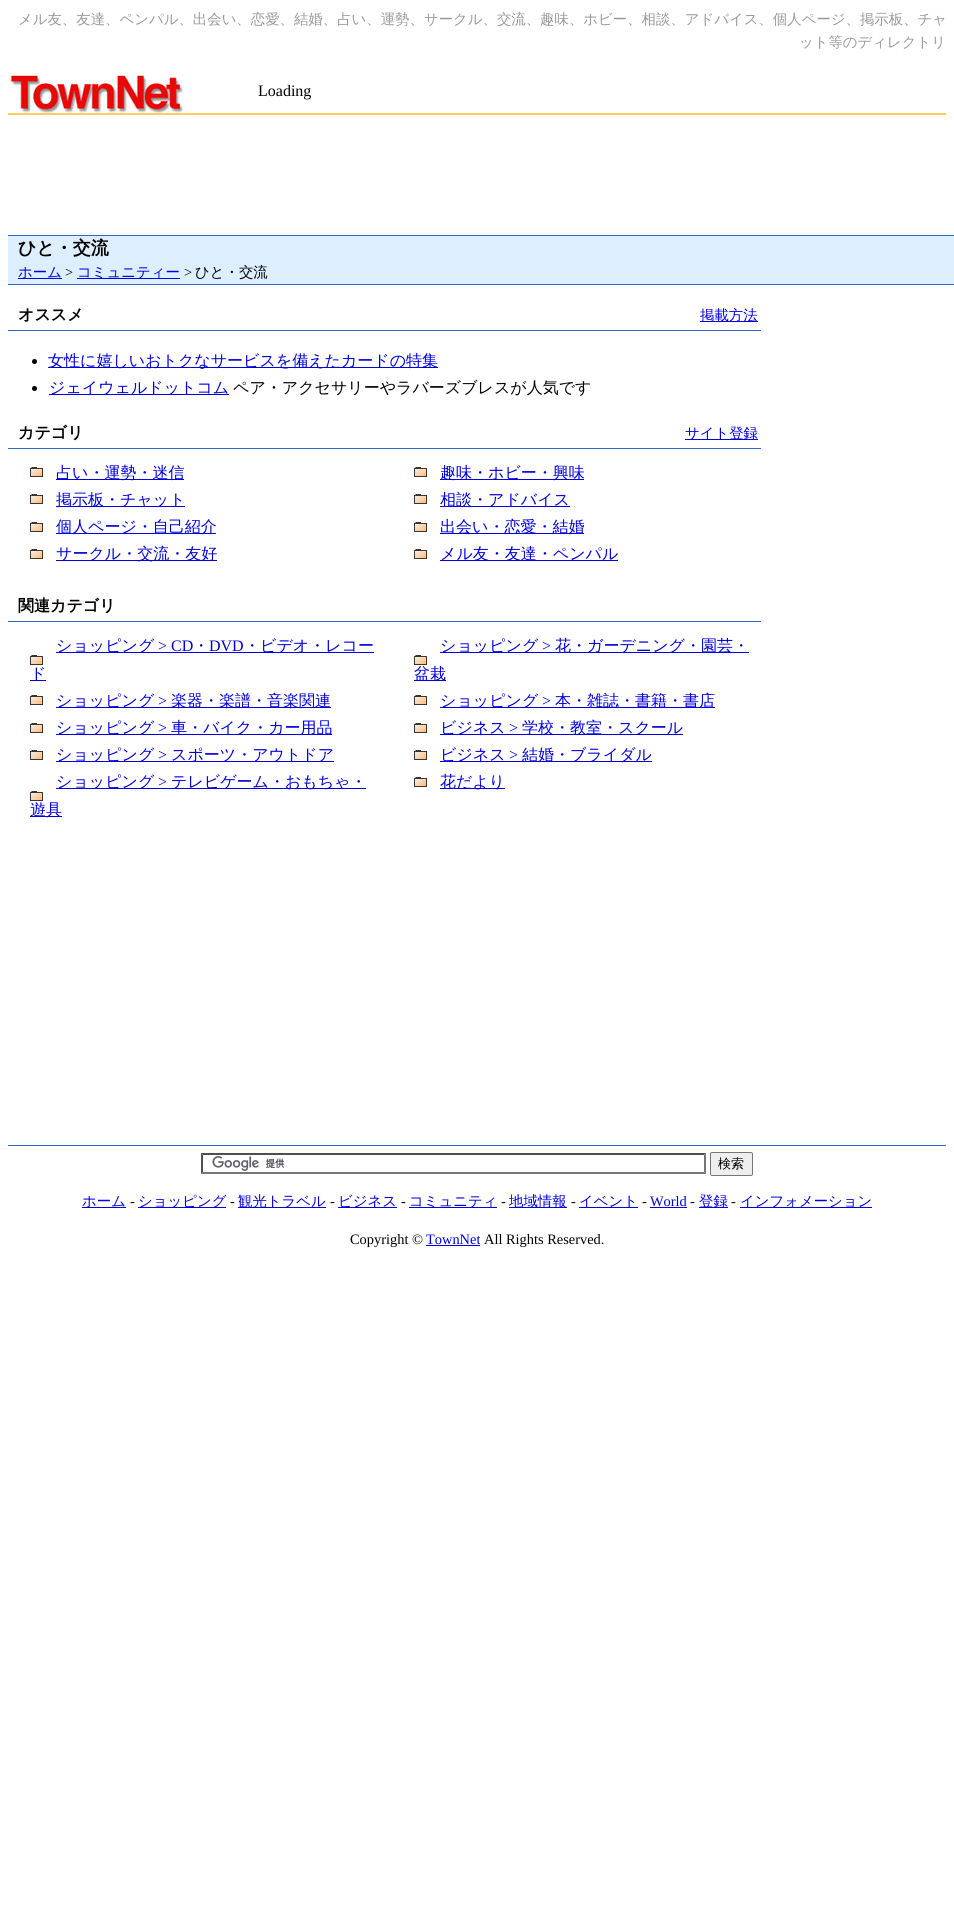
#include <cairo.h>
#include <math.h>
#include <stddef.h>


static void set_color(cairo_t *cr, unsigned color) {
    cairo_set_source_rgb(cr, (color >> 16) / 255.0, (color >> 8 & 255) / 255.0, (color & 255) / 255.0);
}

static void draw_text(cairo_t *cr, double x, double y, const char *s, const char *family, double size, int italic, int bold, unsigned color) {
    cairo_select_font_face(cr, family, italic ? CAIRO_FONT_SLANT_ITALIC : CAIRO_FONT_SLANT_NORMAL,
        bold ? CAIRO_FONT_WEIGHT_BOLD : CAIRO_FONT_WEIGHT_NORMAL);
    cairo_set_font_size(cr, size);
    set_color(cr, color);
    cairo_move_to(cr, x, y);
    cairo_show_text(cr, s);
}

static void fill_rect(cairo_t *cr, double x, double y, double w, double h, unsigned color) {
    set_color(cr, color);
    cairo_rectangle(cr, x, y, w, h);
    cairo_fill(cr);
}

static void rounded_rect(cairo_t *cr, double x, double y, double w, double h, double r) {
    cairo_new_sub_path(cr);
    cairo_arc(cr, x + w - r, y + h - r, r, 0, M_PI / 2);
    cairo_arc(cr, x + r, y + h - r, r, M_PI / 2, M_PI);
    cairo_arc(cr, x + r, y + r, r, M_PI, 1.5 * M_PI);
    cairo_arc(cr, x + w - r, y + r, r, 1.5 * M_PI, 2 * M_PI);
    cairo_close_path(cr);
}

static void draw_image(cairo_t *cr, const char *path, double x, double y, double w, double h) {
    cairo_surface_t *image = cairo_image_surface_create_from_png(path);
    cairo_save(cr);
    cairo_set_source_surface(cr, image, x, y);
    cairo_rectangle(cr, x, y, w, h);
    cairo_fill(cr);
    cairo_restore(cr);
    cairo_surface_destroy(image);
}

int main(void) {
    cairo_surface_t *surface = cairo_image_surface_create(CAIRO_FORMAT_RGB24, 954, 1928);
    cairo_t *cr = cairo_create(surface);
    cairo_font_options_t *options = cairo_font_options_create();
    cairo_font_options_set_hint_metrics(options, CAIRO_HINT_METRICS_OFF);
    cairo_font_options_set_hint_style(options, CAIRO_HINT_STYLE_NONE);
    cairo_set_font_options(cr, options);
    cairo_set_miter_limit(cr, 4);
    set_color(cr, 0xFFFFFF);
    cairo_paint(cr);
    draw_text(cr, 18, 24, "メル友、友達、ペンパル、出会い、恋愛、結婚、占い、運勢、サークル、交流、趣味、ホビー、相談、アドバイス、個人ページ、掲示板、チャ", "WenQuanYi Zen Hei Medium", 14.4, 0, 0, 0x999999);
    draw_text(cr, 799, 47, "ット等のディレクトリ", "WenQuanYi Zen Hei Medium", 14.4, 0, 0, 0x999999);
    draw_image(cr, "assets/img1.png", 10, 75, 173, 38);
    draw_text(cr, 258, 96, "Loading", "Liberation Serif", 16, 0, 0, 0x000000);
    fill_rect(cr, 8, 113, 938, 2, 0xFFCC66);
    fill_rect(cr, 8, 236, 946, 48, 0xDDEEFF);
    fill_rect(cr, 8, 235, 946, 1, 0x3366CC);
    fill_rect(cr, 8, 284, 946, 1, 0x3366CC);
    draw_text(cr, 18, 254, "ひと・交流", "WenQuanYi Zen Hei", 18, 0, 1, 0x000000);
    fill_rect(cr, 18, 278, 44, 1, 0x0000DD);
    draw_text(cr, 18, 277, "ホーム", "WenQuanYi Zen Hei Medium", 14.4, 0, 0, 0x0000DD);
    draw_text(cr, 65, 277, ">", "Liberation Serif", 14.4, 0, 0, 0x000000);
    fill_rect(cr, 77, 278, 103, 1, 0x0000DD);
    draw_text(cr, 77, 277, "コミュニティー", "WenQuanYi Zen Hei Medium", 14.4, 0, 0, 0x0000DD);
    draw_text(cr, 184, 277, ">", "Liberation Serif", 14.4, 0, 0, 0x000000);
    draw_text(cr, 195, 277, "ひと・交流", "WenQuanYi Zen Hei Medium", 14.4, 0, 0, 0x000000);
    fill_rect(cr, 8, 330, 753, 1, 0x3366CC);
    draw_text(cr, 18, 320, "オススメ", "WenQuanYi Zen Hei", 16, 0, 1, 0x000000);
    fill_rect(cr, 700, 321, 58, 1, 0x0000DD);
    draw_text(cr, 700, 320, "掲載方法", "WenQuanYi Zen Hei Medium", 14.4, 0, 0, 0x0000DD);
    set_color(cr, 0x000000);
    cairo_new_path(cr);
    cairo_arc(cr, 34.5, 361.5, 2.5, 0, 2 * M_PI);
    cairo_fill(cr);
    fill_rect(cr, 48, 367, 390, 1, 0x0000DD);
    draw_text(cr, 48, 366, "女性に嬉しいおトクなサービスを備えたカードの特集", "WenQuanYi Zen Hei Medium", 16, 0, 0, 0x0000DD);
    set_color(cr, 0x000000);
    cairo_new_path(cr);
    cairo_arc(cr, 34.5, 388.5, 2.5, 0, 2 * M_PI);
    cairo_fill(cr);
    fill_rect(cr, 49, 394, 180, 1, 0x0000DD);
    draw_text(cr, 49, 393, "ジェイウェルドットコム", "WenQuanYi Zen Hei Medium", 16, 0, 0, 0x0000DD);
    draw_text(cr, 233, 393, "ペア・アクセサリーやラバーズブレスが人気です", "WenQuanYi Zen Hei Medium", 16, 0, 0, 0x000000);
    fill_rect(cr, 8, 448, 753, 1, 0x3366CC);
    draw_text(cr, 18, 438, "カテゴリ", "WenQuanYi Zen Hei", 16, 0, 1, 0x000000);
    fill_rect(cr, 685, 439, 73, 1, 0x0000DD);
    draw_text(cr, 685, 438, "サイト登録", "WenQuanYi Zen Hei Medium", 14.4, 0, 0, 0x0000DD);
    draw_image(cr, "assets/img2.png", 30, 467, 13, 10);
    fill_rect(cr, 56, 479, 128, 1, 0x0000DD);
    draw_text(cr, 56, 478, "占い・運勢・迷信", "WenQuanYi Zen Hei Medium", 16, 0, 0, 0x0000DD);
    draw_image(cr, "assets/img2.png", 30, 494, 13, 10);
    fill_rect(cr, 56, 506, 129, 1, 0x0000DD);
    draw_text(cr, 56, 505, "掲示板・チャット", "WenQuanYi Zen Hei Medium", 16, 0, 0, 0x0000DD);
    draw_image(cr, "assets/img2.png", 30, 522, 13, 10);
    fill_rect(cr, 56, 533, 160, 1, 0x0000DD);
    draw_text(cr, 56, 532, "個人ページ・自己紹介", "WenQuanYi Zen Hei Medium", 16, 0, 0, 0x0000DD);
    draw_image(cr, "assets/img2.png", 30, 549, 13, 10);
    fill_rect(cr, 56, 560, 161, 1, 0x0000DD);
    draw_text(cr, 56, 559, "サークル・交流・友好", "WenQuanYi Zen Hei Medium", 16, 0, 0, 0x0000DD);
    draw_image(cr, "assets/img2.png", 414, 467, 13, 10);
    fill_rect(cr, 440, 479, 144, 1, 0x0000DD);
    draw_text(cr, 440, 478, "趣味・ホビー・興味", "WenQuanYi Zen Hei Medium", 16, 0, 0, 0x0000DD);
    draw_image(cr, "assets/img2.png", 414, 494, 13, 10);
    fill_rect(cr, 440, 506, 130, 1, 0x0000DD);
    draw_text(cr, 440, 505, "相談・アドバイス", "WenQuanYi Zen Hei Medium", 16, 0, 0, 0x0000DD);
    draw_image(cr, "assets/img2.png", 414, 522, 13, 10);
    fill_rect(cr, 440, 533, 144, 1, 0x0000DD);
    draw_text(cr, 440, 532, "出会い・恋愛・結婚", "WenQuanYi Zen Hei Medium", 16, 0, 0, 0x0000DD);
    draw_image(cr, "assets/img2.png", 414, 549, 13, 10);
    fill_rect(cr, 440, 560, 178, 1, 0x0000DD);
    draw_text(cr, 440, 559, "メル友・友達・ペンパル", "WenQuanYi Zen Hei Medium", 16, 0, 0, 0x0000DD);
    fill_rect(cr, 8, 621, 753, 1, 0x3366CC);
    draw_text(cr, 18, 611, "関連カテゴリ", "WenQuanYi Zen Hei", 16, 0, 1, 0x000000);
    draw_image(cr, "assets/img2.png", 30, 655, 13, 10);
    fill_rect(cr, 56, 652, 318, 1, 0x0000DD);
    draw_text(cr, 56, 651, "ショッピング", "WenQuanYi Zen Hei Medium", 16, 0, 0, 0x0000DD);
    draw_text(cr, 158, 651, "> CD", "Liberation Serif", 16, 0, 0, 0x0000DD);
    draw_text(cr, 193, 651, "・", "WenQuanYi Zen Hei Medium", 16, 0, 0, 0x0000DD);
    draw_text(cr, 209, 651, "DVD", "Liberation Serif", 16, 0, 0, 0x0000DD);
    draw_text(cr, 244, 651, "・ビデオ・レコー", "WenQuanYi Zen Hei Medium", 16, 0, 0, 0x0000DD);
    fill_rect(cr, 30, 680, 16, 1, 0x0000DD);
    draw_text(cr, 30, 679, "ド", "WenQuanYi Zen Hei Medium", 16, 0, 0, 0x0000DD);
    draw_image(cr, "assets/img2.png", 30, 695, 13, 10);
    fill_rect(cr, 56, 707, 275, 1, 0x0000DD);
    draw_text(cr, 56, 706, "ショッピング", "WenQuanYi Zen Hei Medium", 16, 0, 0, 0x0000DD);
    draw_text(cr, 158, 706, ">", "Liberation Serif", 16, 0, 0, 0x0000DD);
    draw_text(cr, 171, 706, "楽器・楽譜・音楽関連", "WenQuanYi Zen Hei Medium", 16, 0, 0, 0x0000DD);
    draw_image(cr, "assets/img2.png", 30, 723, 13, 10);
    fill_rect(cr, 56, 734, 276, 1, 0x0000DD);
    draw_text(cr, 56, 733, "ショッピング", "WenQuanYi Zen Hei Medium", 16, 0, 0, 0x0000DD);
    draw_text(cr, 158, 733, ">", "Liberation Serif", 16, 0, 0, 0x0000DD);
    draw_text(cr, 171, 733, "車・バイク・カー用品", "WenQuanYi Zen Hei Medium", 16, 0, 0, 0x0000DD);
    draw_image(cr, "assets/img2.png", 30, 750, 13, 10);
    fill_rect(cr, 56, 761, 278, 1, 0x0000DD);
    draw_text(cr, 56, 760, "ショッピング", "WenQuanYi Zen Hei Medium", 16, 0, 0, 0x0000DD);
    draw_text(cr, 158, 760, ">", "Liberation Serif", 16, 0, 0, 0x0000DD);
    draw_text(cr, 171, 760, "スポーツ・アウトドア", "WenQuanYi Zen Hei Medium", 16, 0, 0, 0x0000DD);
    draw_image(cr, "assets/img2.png", 30, 791, 13, 10);
    fill_rect(cr, 56, 788, 310, 1, 0x0000DD);
    draw_text(cr, 56, 787, "ショッピング", "WenQuanYi Zen Hei Medium", 16, 0, 0, 0x0000DD);
    draw_text(cr, 158, 787, ">", "Liberation Serif", 16, 0, 0, 0x0000DD);
    draw_text(cr, 171, 787, "テレビゲーム・おもちゃ・", "WenQuanYi Zen Hei Medium", 16, 0, 0, 0x0000DD);
    fill_rect(cr, 30, 816, 32, 1, 0x0000DD);
    draw_text(cr, 30, 815, "遊具", "WenQuanYi Zen Hei Medium", 16, 0, 0, 0x0000DD);
    draw_image(cr, "assets/img2.png", 414, 655, 13, 10);
    fill_rect(cr, 440, 652, 309, 1, 0x0000DD);
    draw_text(cr, 440, 651, "ショッピング", "WenQuanYi Zen Hei Medium", 16, 0, 0, 0x0000DD);
    draw_text(cr, 542, 651, ">", "Liberation Serif", 16, 0, 0, 0x0000DD);
    draw_text(cr, 555, 651, "花・ガーデニング・園芸・", "WenQuanYi Zen Hei Medium", 16, 0, 0, 0x0000DD);
    fill_rect(cr, 414, 680, 32, 1, 0x0000DD);
    draw_text(cr, 414, 679, "盆栽", "WenQuanYi Zen Hei Medium", 16, 0, 0, 0x0000DD);
    draw_image(cr, "assets/img2.png", 414, 695, 13, 10);
    fill_rect(cr, 440, 707, 275, 1, 0x0000DD);
    draw_text(cr, 440, 706, "ショッピング", "WenQuanYi Zen Hei Medium", 16, 0, 0, 0x0000DD);
    draw_text(cr, 542, 706, ">", "Liberation Serif", 16, 0, 0, 0x0000DD);
    draw_text(cr, 555, 706, "本・雑誌・書籍・書店", "WenQuanYi Zen Hei Medium", 16, 0, 0, 0x0000DD);
    draw_image(cr, "assets/img2.png", 414, 723, 13, 10);
    fill_rect(cr, 440, 734, 243, 1, 0x0000DD);
    draw_text(cr, 440, 733, "ビジネス", "WenQuanYi Zen Hei Medium", 16, 0, 0, 0x0000DD);
    draw_text(cr, 509, 733, ">", "Liberation Serif", 16, 0, 0, 0x0000DD);
    draw_text(cr, 522, 733, "学校・教室・スクール", "WenQuanYi Zen Hei Medium", 16, 0, 0, 0x0000DD);
    draw_image(cr, "assets/img2.png", 414, 750, 13, 10);
    fill_rect(cr, 440, 761, 212, 1, 0x0000DD);
    draw_text(cr, 440, 760, "ビジネス", "WenQuanYi Zen Hei Medium", 16, 0, 0, 0x0000DD);
    draw_text(cr, 509, 760, ">", "Liberation Serif", 16, 0, 0, 0x0000DD);
    draw_text(cr, 522, 760, "結婚・ブライダル", "WenQuanYi Zen Hei Medium", 16, 0, 0, 0x0000DD);
    draw_image(cr, "assets/img2.png", 414, 777, 13, 10);
    fill_rect(cr, 440, 788, 65, 1, 0x0000DD);
    draw_text(cr, 440, 787, "花だより", "WenQuanYi Zen Hei Medium", 16, 0, 0, 0x0000DD);
    fill_rect(cr, 8, 1145, 938, 1, 0x3366CC);
    draw_image(cr, "assets/img3.png", 212, 1156, 73, 15);
    set_color(cr, 0x4F4F4F);
    cairo_new_path(cr);
    cairo_move_to(cr, 201, 1153);
    cairo_line_to(cr, 706, 1153);
    cairo_line_to(cr, 704, 1155);
    cairo_line_to(cr, 203, 1155);
    cairo_close_path(cr);
    cairo_fill(cr);
    set_color(cr, 0x767676);
    cairo_new_path(cr);
    cairo_move_to(cr, 706, 1153);
    cairo_line_to(cr, 706, 1174);
    cairo_line_to(cr, 704, 1172);
    cairo_line_to(cr, 704, 1155);
    cairo_close_path(cr);
    cairo_fill(cr);
    cairo_new_path(cr);
    cairo_move_to(cr, 706, 1174);
    cairo_line_to(cr, 201, 1174);
    cairo_line_to(cr, 203, 1172);
    cairo_line_to(cr, 704, 1172);
    cairo_close_path(cr);
    cairo_fill(cr);
    set_color(cr, 0x4F4F4F);
    cairo_new_path(cr);
    cairo_move_to(cr, 201, 1174);
    cairo_line_to(cr, 201, 1153);
    cairo_line_to(cr, 203, 1155);
    cairo_line_to(cr, 203, 1172);
    cairo_close_path(cr);
    cairo_fill(cr);
    set_color(cr, 0xEFEFEF);
    rounded_rect(cr, 710.5, 1152.5, 42, 23, 1.5);
    cairo_fill_preserve(cr);
    set_color(cr, 0x767676);
    cairo_set_line_width(cr, 1);
    cairo_stroke(cr);
    draw_text(cr, 718, 1168, "検索", "WenQuanYi Zen Hei Medium", 13, 0, 0, 0x000000);
    fill_rect(cr, 82, 1207, 44, 1, 0x0000DD);
    draw_text(cr, 82, 1206, "ホーム", "WenQuanYi Zen Hei Medium", 14.4, 0, 0, 0x0000DD);
    draw_text(cr, 130, 1206, "-", "Liberation Serif", 14.4, 0, 0, 0x000000);
    fill_rect(cr, 138, 1207, 88, 1, 0x0000DD);
    draw_text(cr, 138, 1206, "ショッピング", "WenQuanYi Zen Hei Medium", 14.4, 0, 0, 0x0000DD);
    draw_text(cr, 230, 1206, "-", "Liberation Serif", 14.4, 0, 0, 0x000000);
    fill_rect(cr, 238, 1207, 88, 1, 0x0000DD);
    draw_text(cr, 238, 1206, "観光トラベル", "WenQuanYi Zen Hei Medium", 14.4, 0, 0, 0x0000DD);
    draw_text(cr, 330, 1206, "-", "Liberation Serif", 14.4, 0, 0, 0x000000);
    fill_rect(cr, 338, 1207, 59, 1, 0x0000DD);
    draw_text(cr, 338, 1206, "ビジネス", "WenQuanYi Zen Hei Medium", 14.4, 0, 0, 0x0000DD);
    draw_text(cr, 401, 1206, "-", "Liberation Serif", 14.4, 0, 0, 0x000000);
    fill_rect(cr, 409, 1207, 88, 1, 0x0000DD);
    draw_text(cr, 409, 1206, "コミュニティ", "WenQuanYi Zen Hei Medium", 14.4, 0, 0, 0x0000DD);
    draw_text(cr, 501, 1206, "-", "Liberation Serif", 14.4, 0, 0, 0x000000);
    fill_rect(cr, 509, 1207, 58, 1, 0x0000DD);
    draw_text(cr, 509, 1206, "地域情報", "WenQuanYi Zen Hei Medium", 14.4, 0, 0, 0x0000DD);
    draw_text(cr, 571, 1206, "-", "Liberation Serif", 14.4, 0, 0, 0x000000);
    fill_rect(cr, 579, 1207, 59, 1, 0x0000DD);
    draw_text(cr, 579, 1206, "イベント", "WenQuanYi Zen Hei Medium", 14.4, 0, 0, 0x0000DD);
    draw_text(cr, 642, 1206, "-", "Liberation Serif", 14.4, 0, 0, 0x000000);
    draw_text(cr, 650, 1206, "World", "Liberation Serif", 14.4, 0, 0, 0x0000DD);
    fill_rect(cr, 650, 1207, 37, 1, 0x0000DD);
    draw_text(cr, 690, 1206, "-", "Liberation Serif", 14.4, 0, 0, 0x000000);
    fill_rect(cr, 699, 1207, 29, 1, 0x0000DD);
    draw_text(cr, 699, 1206, "登録", "WenQuanYi Zen Hei Medium", 14.4, 0, 0, 0x0000DD);
    draw_text(cr, 731, 1206, "-", "Liberation Serif", 14.4, 0, 0, 0x000000);
    fill_rect(cr, 740, 1207, 132, 1, 0x0000DD);
    draw_text(cr, 740, 1206, "インフォメーション", "WenQuanYi Zen Hei Medium", 14.4, 0, 0, 0x0000DD);
    draw_text(cr, 350, 1244, "Copyright ©", "Liberation Serif", 14.4, 0, 0, 0x000000);
    draw_text(cr, 426, 1244, "TownNet", "Liberation Serif", 14.4, 0, 0, 0x0000DD);
    fill_rect(cr, 426, 1245, 54, 1, 0x0000DD);
    draw_text(cr, 484, 1244, "All Rights Reserved.", "Liberation Serif", 14.4, 0, 0, 0x000000);
    cairo_surface_write_to_png(surface, "output.png");
    cairo_font_options_destroy(options);
    cairo_destroy(cr);
    cairo_surface_destroy(surface);
    return 0;
}
